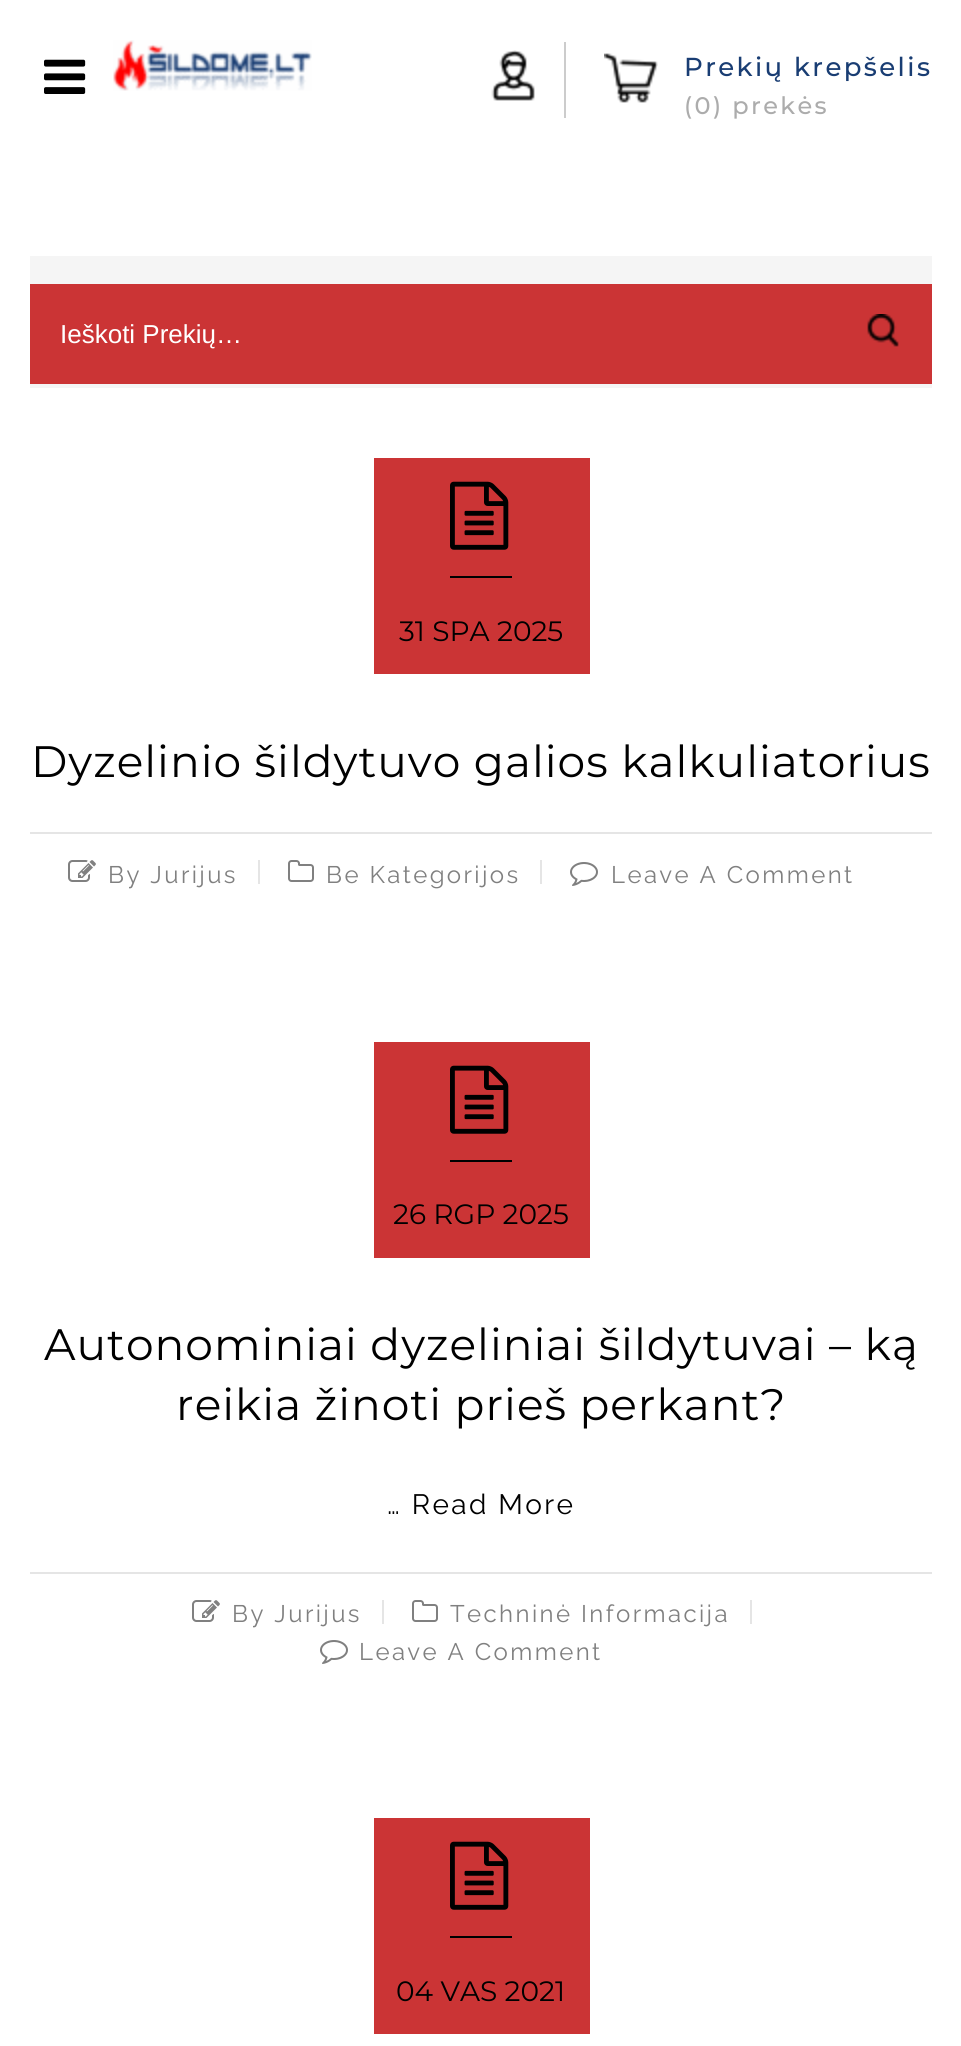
#include <cairo.h>
#include <math.h>
#include <stddef.h>


static void set_color(cairo_t *cr, unsigned color) {
    cairo_set_source_rgb(cr, (color >> 16) / 255.0, (color >> 8 & 255) / 255.0, (color & 255) / 255.0);
}

static void draw_text(cairo_t *cr, double x, double y, const char *s, const char *family, double size, int italic, int bold, unsigned color) {
    cairo_select_font_face(cr, family, italic ? CAIRO_FONT_SLANT_ITALIC : CAIRO_FONT_SLANT_NORMAL,
        bold ? CAIRO_FONT_WEIGHT_BOLD : CAIRO_FONT_WEIGHT_NORMAL);
    cairo_set_font_size(cr, size);
    set_color(cr, color);
    cairo_move_to(cr, x, y);
    cairo_show_text(cr, s);
}

static void draw_spaced(cairo_t *cr, double x, double y, const char *s, double letter, double word) {
    cairo_move_to(cr, x, y);
    while (*s) {
        char ch[5] = {0};
        int n = 0;
        do ch[n++] = *s++; while ((*s & 0xC0) == 0x80);
        cairo_show_text(cr, ch);
        cairo_rel_move_to(cr, letter + word * (*ch == ' '), 0);
    }
}

static void fill_rect(cairo_t *cr, double x, double y, double w, double h, unsigned color) {
    set_color(cr, color);
    cairo_rectangle(cr, x, y, w, h);
    cairo_fill(cr);
}

static void draw_image(cairo_t *cr, const char *path, double x, double y, double w, double h) {
    cairo_surface_t *image = cairo_image_surface_create_from_png(path);
    cairo_save(cr);
    cairo_set_source_surface(cr, image, x, y);
    cairo_rectangle(cr, x, y, w, h);
    cairo_fill(cr);
    cairo_restore(cr);
    cairo_surface_destroy(image);
}

int main(void) {
    cairo_surface_t *surface = cairo_image_surface_create(CAIRO_FORMAT_RGB24, 961, 2046);
    cairo_t *cr = cairo_create(surface);
    cairo_font_options_t *options = cairo_font_options_create();
    cairo_font_options_set_hint_metrics(options, CAIRO_HINT_METRICS_OFF);
    cairo_font_options_set_hint_style(options, CAIRO_HINT_STYLE_NONE);
    cairo_set_font_options(cr, options);
    cairo_set_miter_limit(cr, 4);
    set_color(cr, 0xFFFFFF);
    cairo_paint(cr);
    draw_image(cr, "assets/img1.png", 44, 59, 42, 35);
    draw_image(cr, "assets/img2.png", 113, 40, 199, 51);
    draw_image(cr, "assets/img3.png", 491, 50, 44, 51);
    fill_rect(cr, 564, 42, 2, 76, 0xCCCCCC);
    draw_image(cr, "assets/img4.png", 604, 53, 54, 50);
    cairo_select_font_face(cr, "Montserrat Medium", CAIRO_FONT_SLANT_NORMAL, CAIRO_FONT_WEIGHT_NORMAL);
    cairo_set_font_size(cr, 26);
    set_color(cr, 0x193D73);
    draw_spaced(cr, 684, 76, "Prekių krepšelis", 2.4, 0);
    cairo_set_font_size(cr, 24);
    set_color(cr, 0xACACAC);
    draw_spaced(cr, 684, 114, "(0) prekės", 2.4, 0);
    fill_rect(cr, 30, 256, 902, 132, 0xF5F5F5);
    fill_rect(cr, 30, 284, 902, 100, 0xCB3435);
    draw_text(cr, 60, 343, "Ieškoti Prekių…", "Liberation Sans", 26, 0, 0, 0xFFFFFF);
    draw_image(cr, "assets/img5.png", 867, 314, 32, 33);
    fill_rect(cr, 374, 458, 216, 216, 0xCB3435);
    fill_rect(cr, 450, 576, 62, 2, 0x000000);
    draw_image(cr, "assets/img6.png", 450, 481, 59, 69);
    draw_text(cr, 399, 641, "31 SPA 2025", "Montserrat", 28, 0, 0, 0x000000);
    cairo_set_font_size(cr, 44);
    draw_spaced(cr, 31, 777, "Dyzelinio šildytuvo galios kalkuliatorius", 1, 0);
    fill_rect(cr, 30, 832, 902, 2, 0xE5E5E5);
    draw_image(cr, "assets/img7.png", 68, 860, 28, 22);
    cairo_select_font_face(cr, "Raleway Thin", CAIRO_FONT_SLANT_NORMAL, CAIRO_FONT_WEIGHT_NORMAL);
    cairo_set_font_size(cr, 24);
    set_color(cr, 0x808080);
    draw_spaced(cr, 108, 883, "By Jurijus", 2.4, 0);
    fill_rect(cr, 258, 860, 2, 24, 0xE5E5E5);
    draw_image(cr, "assets/img8.png", 288, 860, 26, 22);
    set_color(cr, 0x808080);
    draw_spaced(cr, 326, 883, "Be Kategorijos", 2.4, 0);
    fill_rect(cr, 540, 860, 2, 24, 0xE5E5E5);
    draw_image(cr, "assets/img9.png", 570, 862, 28, 24);
    set_color(cr, 0x808080);
    draw_spaced(cr, 611, 883, "Leave A Comment", 2.4, 0);
    fill_rect(cr, 374, 1042, 216, 216, 0xCB3435);
    fill_rect(cr, 450, 1160, 62, 2, 0x000000);
    draw_image(cr, "assets/img6.png", 450, 1065, 59, 69);
    draw_text(cr, 393, 1224, "26 RGP 2025", "Montserrat", 28, 0, 0, 0x000000);
    cairo_set_font_size(cr, 44);
    draw_spaced(cr, 44, 1360, "Autonominiai dyzeliniai šildytuvai – ką", 1, 0);
    draw_spaced(cr, 176, 1420, "reikia žinoti prieš perkant?", 1, 0);
    cairo_select_font_face(cr, "Raleway Thin", CAIRO_FONT_SLANT_NORMAL, CAIRO_FONT_WEIGHT_NORMAL);
    cairo_set_font_size(cr, 28);
    draw_spaced(cr, 387, 1514, "… Read More", 2.4, 0);
    fill_rect(cr, 30, 1572, 902, 2, 0xE5E5E5);
    draw_image(cr, "assets/img7.png", 192, 1600, 28, 22);
    cairo_set_font_size(cr, 24);
    set_color(cr, 0x808080);
    draw_spaced(cr, 232, 1622, "By Jurijus", 2.4, 0);
    fill_rect(cr, 382, 1600, 2, 24, 0xE5E5E5);
    draw_image(cr, "assets/img8.png", 412, 1600, 26, 22);
    set_color(cr, 0x808080);
    draw_spaced(cr, 450, 1622, "Techninė Informacija", 2.4, 0);
    fill_rect(cr, 750, 1600, 2, 24, 0xE5E5E5);
    draw_image(cr, "assets/img9.png", 320, 1640, 28, 24);
    set_color(cr, 0x808080);
    draw_spaced(cr, 359, 1660, "Leave A Comment", 2.4, 0);
    fill_rect(cr, 374, 1818, 216, 216, 0xCB3435);
    fill_rect(cr, 450, 1936, 62, 2, 0x000000);
    draw_image(cr, "assets/img6.png", 450, 1841, 59, 69);
    draw_text(cr, 396, 2001, "04 VAS 2021", "Montserrat", 28, 0, 0, 0x000000);
    cairo_surface_write_to_png(surface, "output.png");
    cairo_font_options_destroy(options);
    cairo_destroy(cr);
    cairo_surface_destroy(surface);
    return 0;
}
